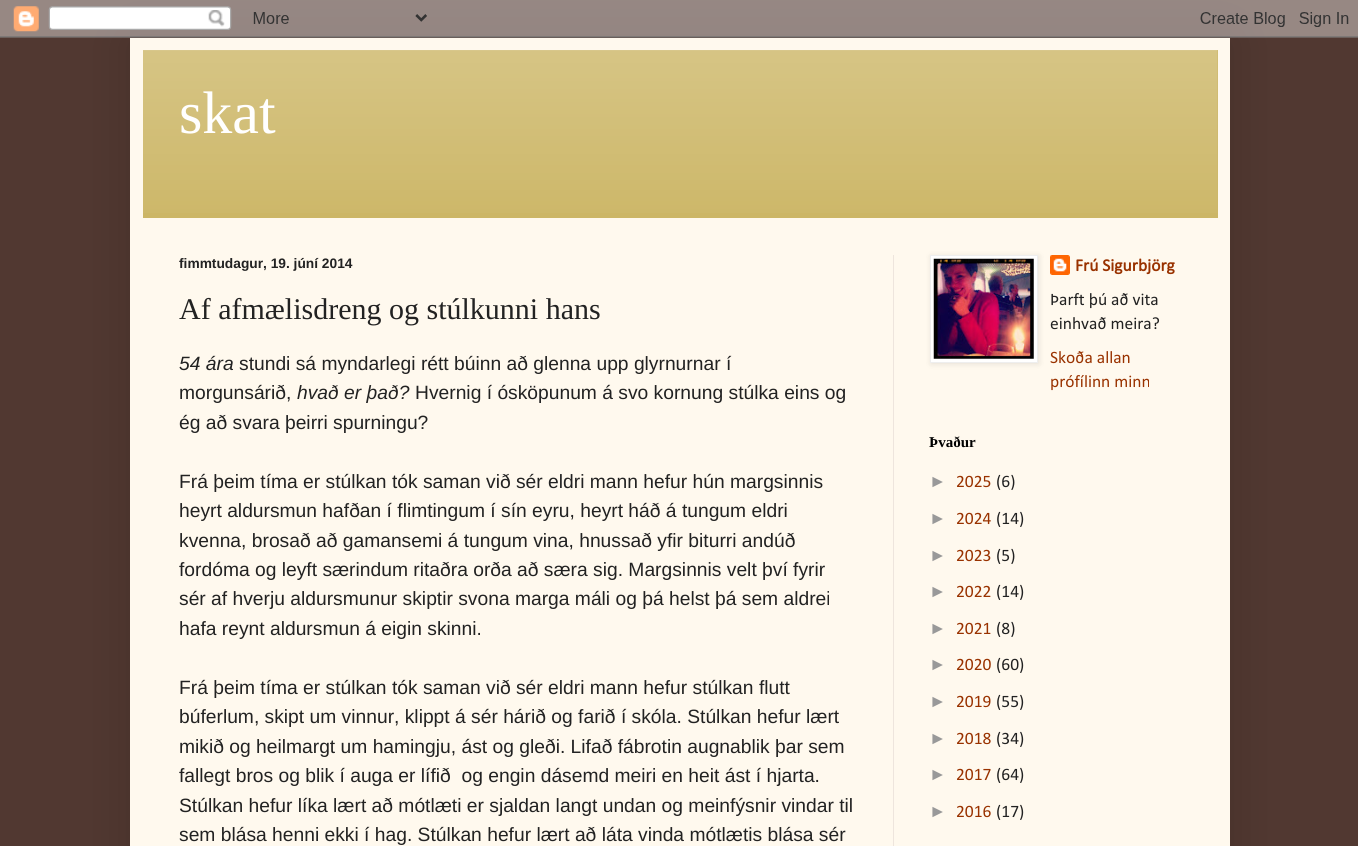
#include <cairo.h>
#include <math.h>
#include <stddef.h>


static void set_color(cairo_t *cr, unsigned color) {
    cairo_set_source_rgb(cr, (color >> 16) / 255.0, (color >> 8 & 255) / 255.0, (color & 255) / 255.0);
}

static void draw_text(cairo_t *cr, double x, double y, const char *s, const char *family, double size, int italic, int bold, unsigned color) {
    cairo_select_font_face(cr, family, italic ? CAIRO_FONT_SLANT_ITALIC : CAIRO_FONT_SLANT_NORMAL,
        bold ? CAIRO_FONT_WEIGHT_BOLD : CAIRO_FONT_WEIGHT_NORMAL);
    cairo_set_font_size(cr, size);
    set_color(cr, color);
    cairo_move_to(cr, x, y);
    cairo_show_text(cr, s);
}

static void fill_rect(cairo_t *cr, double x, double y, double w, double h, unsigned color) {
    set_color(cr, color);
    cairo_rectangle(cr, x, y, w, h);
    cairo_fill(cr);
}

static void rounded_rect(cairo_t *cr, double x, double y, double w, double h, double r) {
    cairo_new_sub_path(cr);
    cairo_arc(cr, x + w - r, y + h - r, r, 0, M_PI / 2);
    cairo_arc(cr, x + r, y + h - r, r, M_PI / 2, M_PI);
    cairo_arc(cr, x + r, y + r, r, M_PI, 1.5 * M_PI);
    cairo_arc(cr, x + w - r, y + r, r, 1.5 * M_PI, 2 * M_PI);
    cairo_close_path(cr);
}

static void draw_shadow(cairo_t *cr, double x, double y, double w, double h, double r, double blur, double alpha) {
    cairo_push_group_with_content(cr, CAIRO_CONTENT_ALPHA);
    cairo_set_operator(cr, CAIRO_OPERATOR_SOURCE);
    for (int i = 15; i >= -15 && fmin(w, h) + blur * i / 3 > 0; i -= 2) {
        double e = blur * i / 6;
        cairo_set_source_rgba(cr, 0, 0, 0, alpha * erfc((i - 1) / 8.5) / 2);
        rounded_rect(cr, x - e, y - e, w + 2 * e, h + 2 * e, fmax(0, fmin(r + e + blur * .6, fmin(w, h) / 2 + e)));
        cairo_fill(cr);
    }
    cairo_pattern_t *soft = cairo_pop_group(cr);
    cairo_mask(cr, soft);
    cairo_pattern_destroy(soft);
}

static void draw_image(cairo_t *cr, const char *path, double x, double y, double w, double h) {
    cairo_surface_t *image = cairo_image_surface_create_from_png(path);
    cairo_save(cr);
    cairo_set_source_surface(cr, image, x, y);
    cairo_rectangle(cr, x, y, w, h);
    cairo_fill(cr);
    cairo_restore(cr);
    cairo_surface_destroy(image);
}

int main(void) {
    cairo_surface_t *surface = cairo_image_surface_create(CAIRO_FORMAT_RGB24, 1358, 846);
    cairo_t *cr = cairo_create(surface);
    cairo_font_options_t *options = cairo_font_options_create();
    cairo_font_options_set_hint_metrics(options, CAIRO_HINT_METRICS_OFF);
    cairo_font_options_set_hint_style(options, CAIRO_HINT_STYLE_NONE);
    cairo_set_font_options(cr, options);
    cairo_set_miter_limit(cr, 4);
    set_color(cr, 0x513831);
    cairo_paint(cr);
    set_color(cr, 0x000000);
    draw_shadow(cr, 130, 38, 1100, 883, 0, 25, 0.15);
    draw_image(cr, "assets/img1.png", 0, 0, 1358, 38);
    fill_rect(cr, 130, 38, 1100, 808, 0xFFF9EE);
    fill_rect(cr, 143, 50, 1075, 168, 0xCCB666);
    draw_image(cr, "assets/img2.png", 143, 50, 1075, 163);
    draw_text(cr, 179, 133, "skat", "Liberation Serif", 60, 0, 0, 0xFFFFFF);
    fill_rect(cr, 893, 255, 1, 591, 0xEEE5DD);
    draw_text(cr, 179, 268, "fimmtudagur, 19. júní 2014", "Liberation Sans", 13.75, 0, 1, 0x222222);
    draw_text(cr, 179, 319, "Af afmælisdreng og stúlkunni hans", "Liberation Serif", 30, 0, 0, 0x222222);
    draw_text(cr, 179, 370, "54 ára", "Liberation Sans", 19.25, 1, 0, 0x222222);
    draw_text(cr, 239, 370, "stundi sá myndarlegi rétt búinn að glenna upp glyrnurnar í", "Liberation Sans", 19.25, 0, 0, 0x222222);
    draw_text(cr, 179, 399, "morgunsárið,", "Liberation Sans", 19.25, 0, 0, 0x222222);
    draw_text(cr, 297, 399, "hvað er það?", "Liberation Sans", 19.25, 1, 0, 0x222222);
    draw_text(cr, 415, 399, "Hvernig í ósköpunum á svo kornung stúlka eins og", "Liberation Sans", 19.25, 0, 0, 0x222222);
    draw_text(cr, 179, 429, "ég að svara þeirri spurningu?", "Liberation Sans", 19.25, 0, 0, 0x222222);
    draw_text(cr, 179, 488, "Frá þeim tíma er stúlkan tók saman við sér eldri mann hefur hún margsinnis", "Liberation Sans", 19.25, 0, 0, 0x222222);
    draw_text(cr, 179, 517, "heyrt aldursmun hafðan í flimtingum í sín eyru, heyrt háð á tungum eldri", "Liberation Sans", 19.25, 0, 0, 0x222222);
    draw_text(cr, 179, 547, "kvenna, brosað að gamansemi á tungum vina, hnussað yfir biturri andúð", "Liberation Sans", 19.25, 0, 0, 0x222222);
    draw_text(cr, 179, 576, "fordóma og leyft særindum ritaðra orða að særa sig. Margsinnis velt því fyrir", "Liberation Sans", 19.25, 0, 0, 0x222222);
    draw_text(cr, 179, 605, "sér af hverju aldursmunur skiptir svona marga máli og þá helst þá sem aldrei", "Liberation Sans", 19.25, 0, 0, 0x222222);
    draw_text(cr, 179, 635, "hafa reynt aldursmun á eigin skinni.", "Liberation Sans", 19.25, 0, 0, 0x222222);
    draw_text(cr, 179, 694, "Frá þeim tíma er stúlkan tók saman við sér eldri mann hefur stúlkan flutt", "Liberation Sans", 19.25, 0, 0, 0x222222);
    draw_text(cr, 179, 723, "búferlum, skipt um vinnur, klippt á sér hárið og farið í skóla. Stúlkan hefur lært", "Liberation Sans", 19.25, 0, 0, 0x222222);
    draw_text(cr, 179, 753, "mikið og heilmargt um hamingju, ást og gleði. Lifað fábrotin augnablik þar sem", "Liberation Sans", 19.25, 0, 0, 0x222222);
    draw_text(cr, 179, 782, "fallegt bros og blik í auga er lífið  og engin dásemd meiri en heit ást í hjarta.", "Liberation Sans", 19.25, 0, 0, 0x222222);
    draw_text(cr, 179, 812, "Stúlkan hefur líka lært að mótlæti er sjaldan langt undan og meinfýsnir vindar til", "Liberation Sans", 19.25, 0, 0, 0x222222);
    draw_text(cr, 179, 841, "sem blása henni ekki í hag. Stúlkan hefur lært að láta vinda mótlætis blása sér", "Liberation Sans", 19.25, 0, 0, 0x222222);
    set_color(cr, 0x000000);
    draw_shadow(cr, 931, 256, 108, 108, 0, 3, 0.1);
    set_color(cr, 0xFFFFFF);
    cairo_rectangle(cr, 930.5, 255.5, 107, 107);
    cairo_fill_preserve(cr);
    set_color(cr, 0xEEEEEE);
    cairo_set_line_width(cr, 1);
    cairo_stroke(cr);
    draw_image(cr, "assets/img3.png", 933, 258, 101, 101);
    draw_image(cr, "assets/img4.png", 1050, 255, 20, 20);
    draw_text(cr, 1075, 271, "Frú Sigurbjörg", "Calibri", 17.5, 0, 1, 0x993200);
    draw_text(cr, 1050, 305, "Þarft þú að vita", "Calibri", 17.5, 0, 0, 0x222222);
    draw_text(cr, 1050, 329, "einhvað meira?", "Calibri", 17.5, 0, 0, 0x222222);
    draw_text(cr, 1050, 363, "Skoða allan", "Calibri", 17.5, 0, 0, 0x993200);
    draw_text(cr, 1050, 387, "prófílinn minn", "Calibri", 17.5, 0, 0, 0x993200);
    draw_text(cr, 929, 447, "Þvaður", "Liberation Serif", 15, 0, 1, 0x000000);
    draw_text(cr, 929, 487, "►", "Liberation Sans", 17.5, 0, 0, 0x999999);
    draw_text(cr, 956, 487, "2025", "Calibri", 17.5, 0, 0, 0x993200);
    draw_text(cr, 996, 487, "(6)", "Calibri", 17.5, 0, 0, 0x222222);
    draw_text(cr, 929, 524, "►", "Liberation Sans", 17.5, 0, 0, 0x999999);
    draw_text(cr, 956, 524, "2024", "Calibri", 17.5, 0, 0, 0x993200);
    draw_text(cr, 996, 524, "(14)", "Calibri", 17.5, 0, 0, 0x222222);
    draw_text(cr, 929, 561, "►", "Liberation Sans", 17.5, 0, 0, 0x999999);
    draw_text(cr, 956, 561, "2023", "Calibri", 17.5, 0, 0, 0x993200);
    draw_text(cr, 996, 561, "(5)", "Calibri", 17.5, 0, 0, 0x222222);
    draw_text(cr, 929, 597, "►", "Liberation Sans", 17.5, 0, 0, 0x999999);
    draw_text(cr, 956, 597, "2022", "Calibri", 17.5, 0, 0, 0x993200);
    draw_text(cr, 996, 597, "(14)", "Calibri", 17.5, 0, 0, 0x222222);
    draw_text(cr, 929, 634, "►", "Liberation Sans", 17.5, 0, 0, 0x999999);
    draw_text(cr, 956, 634, "2021", "Calibri", 17.5, 0, 0, 0x993200);
    draw_text(cr, 996, 634, "(8)", "Calibri", 17.5, 0, 0, 0x222222);
    draw_text(cr, 929, 670, "►", "Liberation Sans", 17.5, 0, 0, 0x999999);
    draw_text(cr, 956, 670, "2020", "Calibri", 17.5, 0, 0, 0x993200);
    draw_text(cr, 996, 670, "(60)", "Calibri", 17.5, 0, 0, 0x222222);
    draw_text(cr, 929, 707, "►", "Liberation Sans", 17.5, 0, 0, 0x999999);
    draw_text(cr, 956, 707, "2019", "Calibri", 17.5, 0, 0, 0x993200);
    draw_text(cr, 996, 707, "(55)", "Calibri", 17.5, 0, 0, 0x222222);
    draw_text(cr, 929, 744, "►", "Liberation Sans", 17.5, 0, 0, 0x999999);
    draw_text(cr, 956, 744, "2018", "Calibri", 17.5, 0, 0, 0x993200);
    draw_text(cr, 996, 744, "(34)", "Calibri", 17.5, 0, 0, 0x222222);
    draw_text(cr, 929, 780, "►", "Liberation Sans", 17.5, 0, 0, 0x999999);
    draw_text(cr, 956, 780, "2017", "Calibri", 17.5, 0, 0, 0x993200);
    draw_text(cr, 996, 780, "(64)", "Calibri", 17.5, 0, 0, 0x222222);
    draw_text(cr, 929, 817, "►", "Liberation Sans", 17.5, 0, 0, 0x999999);
    draw_text(cr, 956, 817, "2016", "Calibri", 17.5, 0, 0, 0x993200);
    draw_text(cr, 996, 817, "(17)", "Calibri", 17.5, 0, 0, 0x222222);
    cairo_surface_write_to_png(surface, "output.png");
    cairo_font_options_destroy(options);
    cairo_destroy(cr);
    cairo_surface_destroy(surface);
    return 0;
}
